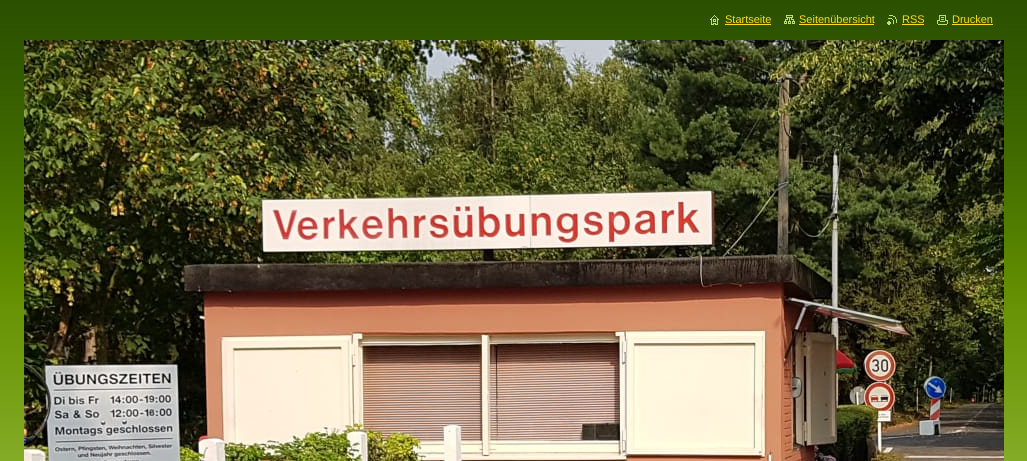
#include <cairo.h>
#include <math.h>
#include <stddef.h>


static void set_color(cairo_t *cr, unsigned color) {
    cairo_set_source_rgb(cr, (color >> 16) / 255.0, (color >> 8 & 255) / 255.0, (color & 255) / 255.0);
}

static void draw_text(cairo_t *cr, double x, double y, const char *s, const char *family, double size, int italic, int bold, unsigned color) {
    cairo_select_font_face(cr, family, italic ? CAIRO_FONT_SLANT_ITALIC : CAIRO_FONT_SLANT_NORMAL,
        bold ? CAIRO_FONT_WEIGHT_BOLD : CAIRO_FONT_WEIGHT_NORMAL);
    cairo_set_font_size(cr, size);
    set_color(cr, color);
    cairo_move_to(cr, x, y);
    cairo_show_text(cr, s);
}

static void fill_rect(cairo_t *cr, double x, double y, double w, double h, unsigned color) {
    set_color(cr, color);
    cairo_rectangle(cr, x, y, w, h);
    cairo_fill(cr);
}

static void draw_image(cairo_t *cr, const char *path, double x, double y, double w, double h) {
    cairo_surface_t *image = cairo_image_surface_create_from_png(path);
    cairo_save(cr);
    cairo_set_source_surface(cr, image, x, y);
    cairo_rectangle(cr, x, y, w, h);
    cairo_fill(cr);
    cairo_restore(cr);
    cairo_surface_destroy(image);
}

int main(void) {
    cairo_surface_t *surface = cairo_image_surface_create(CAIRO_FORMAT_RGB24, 1027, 461);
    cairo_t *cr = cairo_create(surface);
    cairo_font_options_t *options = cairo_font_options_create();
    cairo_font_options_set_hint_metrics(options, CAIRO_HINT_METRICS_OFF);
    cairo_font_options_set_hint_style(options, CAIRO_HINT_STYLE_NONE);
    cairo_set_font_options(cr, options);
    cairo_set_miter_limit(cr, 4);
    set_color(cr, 0xFFFFFF);
    cairo_paint(cr);
    draw_image(cr, "assets/img1.png", 0, 0, 1027, 461);
    draw_image(cr, "assets/img2.png", 710, 15, 9, 10);
    draw_text(cr, 725, 23, "Startseite", "Liberation Sans", 11, 0, 0, 0xFDDA1E);
    fill_rect(cr, 725, 24, 46, 1, 0xFDDA1E);
    draw_image(cr, "assets/img3.png", 784, 15, 11, 9);
    draw_text(cr, 799, 23, "Seitenübersicht", "Liberation Sans", 11, 0, 0, 0xFDDA1E);
    fill_rect(cr, 799, 24, 75, 1, 0xFDDA1E);
    draw_image(cr, "assets/img4.png", 887, 15, 10, 10);
    draw_text(cr, 902, 23, "RSS", "Liberation Sans", 11, 0, 0, 0xFDDA1E);
    fill_rect(cr, 902, 24, 22, 1, 0xFDDA1E);
    draw_image(cr, "assets/img5.png", 937, 15, 11, 10);
    draw_text(cr, 952, 23, "Drucken", "Liberation Sans", 11, 0, 0, 0xFDDA1E);
    fill_rect(cr, 952, 24, 41, 1, 0xFDDA1E);
    draw_image(cr, "assets/img6.png", 24, 40, 980, 421);
    cairo_surface_write_to_png(surface, "output.png");
    cairo_font_options_destroy(options);
    cairo_destroy(cr);
    cairo_surface_destroy(surface);
    return 0;
}
